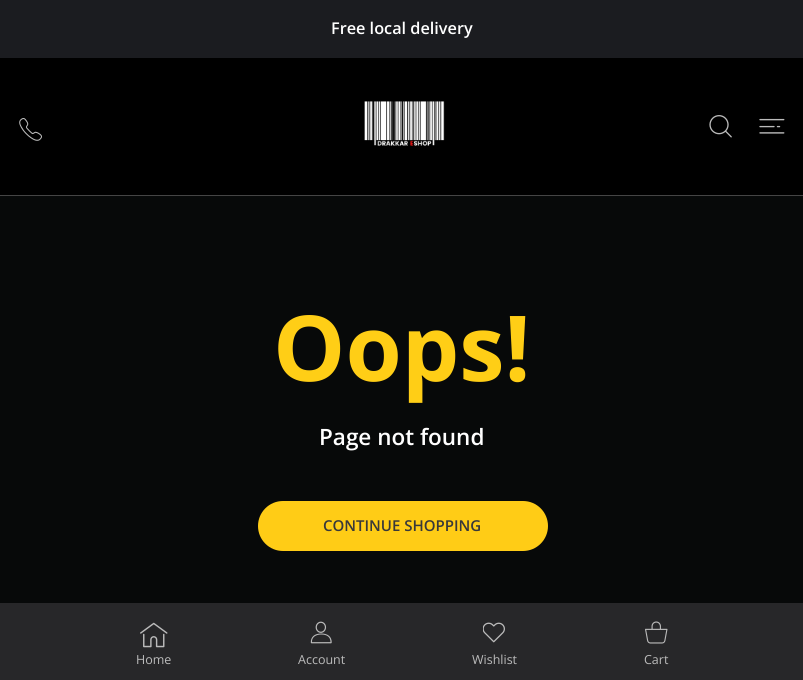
#include <cairo.h>
#include <math.h>
#include <stddef.h>


static void set_color(cairo_t *cr, unsigned color) {
    cairo_set_source_rgb(cr, (color >> 16) / 255.0, (color >> 8 & 255) / 255.0, (color & 255) / 255.0);
}

static void draw_text(cairo_t *cr, double x, double y, const char *s, const char *family, double size, int italic, int bold, unsigned color) {
    cairo_select_font_face(cr, family, italic ? CAIRO_FONT_SLANT_ITALIC : CAIRO_FONT_SLANT_NORMAL,
        bold ? CAIRO_FONT_WEIGHT_BOLD : CAIRO_FONT_WEIGHT_NORMAL);
    cairo_set_font_size(cr, size);
    set_color(cr, color);
    cairo_move_to(cr, x, y);
    cairo_show_text(cr, s);
}

static void fill_rect(cairo_t *cr, double x, double y, double w, double h, unsigned color) {
    set_color(cr, color);
    cairo_rectangle(cr, x, y, w, h);
    cairo_fill(cr);
}

static void rounded_rect(cairo_t *cr, double x, double y, double w, double h, double r) {
    cairo_new_sub_path(cr);
    cairo_arc(cr, x + w - r, y + h - r, r, 0, M_PI / 2);
    cairo_arc(cr, x + r, y + h - r, r, M_PI / 2, M_PI);
    cairo_arc(cr, x + r, y + r, r, M_PI, 1.5 * M_PI);
    cairo_arc(cr, x + w - r, y + r, r, 1.5 * M_PI, 2 * M_PI);
    cairo_close_path(cr);
}

static void draw_image(cairo_t *cr, const char *path, double x, double y, double w, double h) {
    cairo_surface_t *image = cairo_image_surface_create_from_png(path);
    cairo_save(cr);
    cairo_set_source_surface(cr, image, x, y);
    cairo_rectangle(cr, x, y, w, h);
    cairo_fill(cr);
    cairo_restore(cr);
    cairo_surface_destroy(image);
}

int main(void) {
    cairo_surface_t *surface = cairo_image_surface_create(CAIRO_FORMAT_RGB24, 803, 680);
    cairo_t *cr = cairo_create(surface);
    cairo_font_options_t *options = cairo_font_options_create();
    cairo_font_options_set_hint_metrics(options, CAIRO_HINT_METRICS_OFF);
    cairo_font_options_set_hint_style(options, CAIRO_HINT_STYLE_NONE);
    cairo_set_font_options(cr, options);
    cairo_set_miter_limit(cr, 4);
    set_color(cr, 0x070909);
    cairo_paint(cr);
    fill_rect(cr, 0, 0, 803, 58, 0x1B1C20);
    draw_text(cr, 331, 34, "Free local delivery", "Open Sans SemiBold", 16.25, 0, 0, 0xFFFFFF);
    fill_rect(cr, 0, 195, 803, 1, 0x454545);
    fill_rect(cr, 0, 58, 803, 137, 0x000000);
    draw_image(cr, "assets/img1.png", 19, 118, 23, 23);
    draw_image(cr, "assets/img2.png", 364, 101, 81, 45);
    draw_image(cr, "assets/img3.png", 709, 115, 23, 23);
    draw_image(cr, "assets/img4.png", 759, 118, 26, 16);
    draw_text(cr, 273, 381, "Oops!", "Open Sans", 91, 0, 1, 0xFFCE16);
    draw_text(cr, 319, 445, "Page not found", "Open Sans SemiBold", 22.5, 0, 0, 0xFFFFFF);
    set_color(cr, 0xFFCC16);
    rounded_rect(cr, 258, 501, 290, 50, 25);
    cairo_fill(cr);
    draw_text(cr, 323, 531, "CONTINUE SHOPPING", "Open Sans SemiBold", 15, 0, 0, 0x38383A);
    fill_rect(cr, 0, 603, 803, 77, 0x272729);
    draw_image(cr, "assets/img5.png", 140, 622, 28, 26);
    draw_text(cr, 136, 664, "Home", "Open Sans", 12.5, 0, 0, 0xBBBBBB);
    draw_image(cr, "assets/img6.png", 310, 621, 22, 23);
    draw_text(cr, 298, 664, "Account", "Open Sans", 12.5, 0, 0, 0xBBBBBB);
    draw_image(cr, "assets/img7.png", 483, 622, 22, 21);
    draw_text(cr, 472, 664, "Wishlist", "Open Sans", 12.5, 0, 0, 0xBBBBBB);
    draw_image(cr, "assets/img8.png", 645, 621, 23, 23);
    draw_text(cr, 644, 664, "Cart", "Open Sans", 12.5, 0, 0, 0xBBBBBB);
    cairo_surface_write_to_png(surface, "output.png");
    cairo_font_options_destroy(options);
    cairo_destroy(cr);
    cairo_surface_destroy(surface);
    return 0;
}
